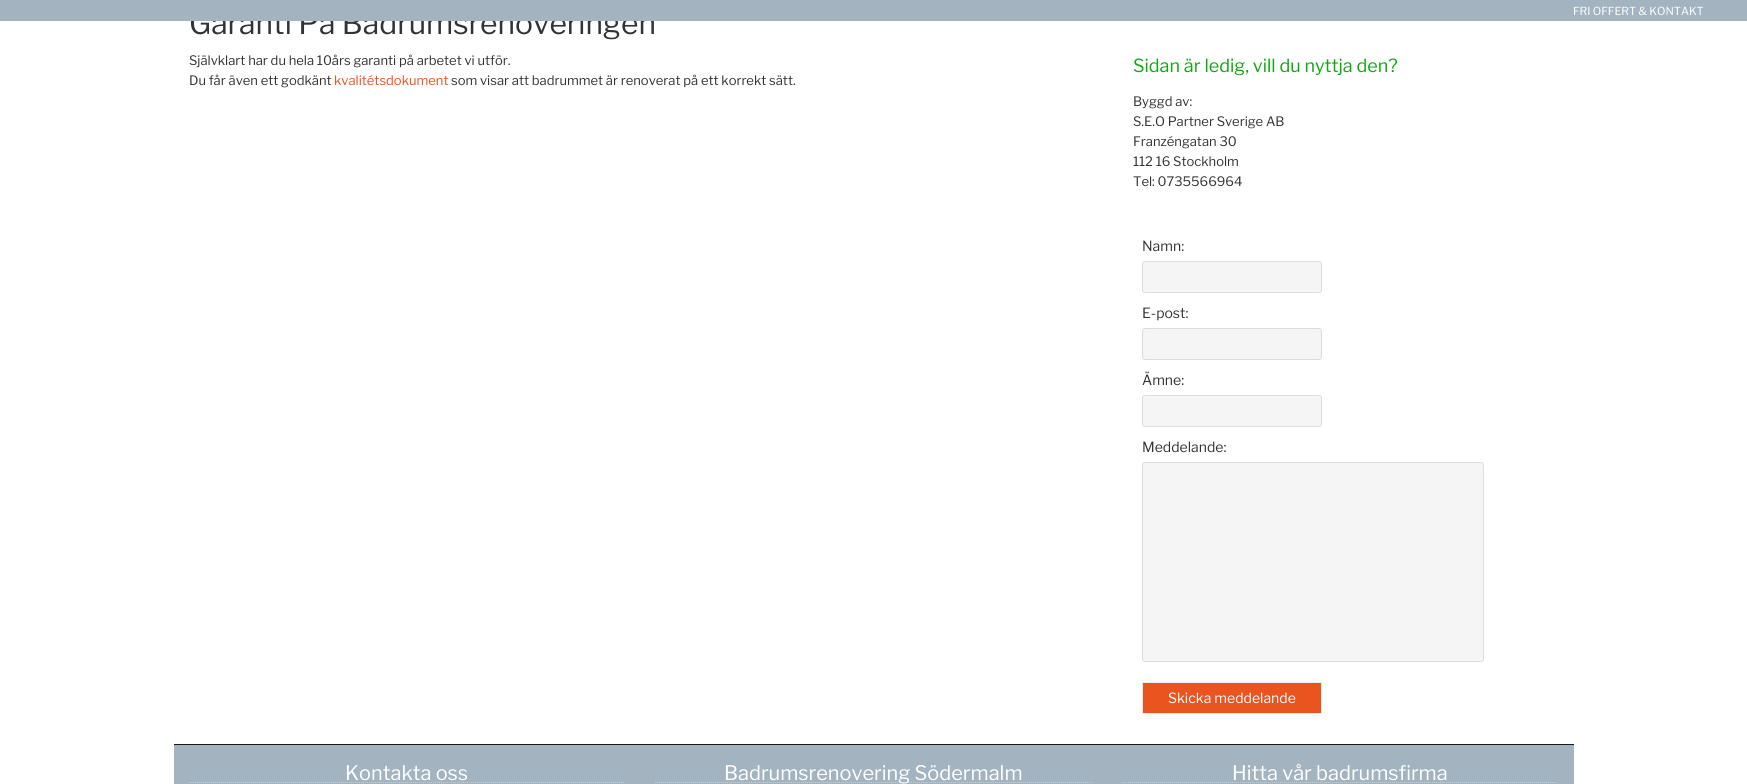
#include <cairo.h>
#include <math.h>
#include <stddef.h>


static void set_color(cairo_t *cr, unsigned color) {
    cairo_set_source_rgb(cr, (color >> 16) / 255.0, (color >> 8 & 255) / 255.0, (color & 255) / 255.0);
}

static void draw_text(cairo_t *cr, double x, double y, const char *s, const char *family, double size, int italic, int bold, unsigned color) {
    cairo_select_font_face(cr, family, italic ? CAIRO_FONT_SLANT_ITALIC : CAIRO_FONT_SLANT_NORMAL,
        bold ? CAIRO_FONT_WEIGHT_BOLD : CAIRO_FONT_WEIGHT_NORMAL);
    cairo_set_font_size(cr, size);
    set_color(cr, color);
    cairo_move_to(cr, x, y);
    cairo_show_text(cr, s);
}

static void fill_rect(cairo_t *cr, double x, double y, double w, double h, unsigned color) {
    set_color(cr, color);
    cairo_rectangle(cr, x, y, w, h);
    cairo_fill(cr);
}

static void rounded_rect(cairo_t *cr, double x, double y, double w, double h, double r) {
    cairo_new_sub_path(cr);
    cairo_arc(cr, x + w - r, y + h - r, r, 0, M_PI / 2);
    cairo_arc(cr, x + r, y + h - r, r, M_PI / 2, M_PI);
    cairo_arc(cr, x + r, y + r, r, M_PI, 1.5 * M_PI);
    cairo_arc(cr, x + w - r, y + r, r, 1.5 * M_PI, 2 * M_PI);
    cairo_close_path(cr);
}

int main(void) {
    cairo_surface_t *surface = cairo_image_surface_create(CAIRO_FORMAT_RGB24, 1747, 784);
    cairo_t *cr = cairo_create(surface);
    cairo_font_options_t *options = cairo_font_options_create();
    cairo_font_options_set_hint_metrics(options, CAIRO_HINT_METRICS_OFF);
    cairo_font_options_set_hint_style(options, CAIRO_HINT_STYLE_NONE);
    cairo_set_font_options(cr, options);
    cairo_set_miter_limit(cr, 4);
    set_color(cr, 0xFFFFFF);
    cairo_paint(cr);
    draw_text(cr, 189, 34, "Garanti På Badrumsrenoveringen", "Libre Franklin", 30, 0, 0, 0x333333);
    draw_text(cr, 189, 65, "Självklart har du hela 10års garanti på arbetet vi utför.", "Libre Franklin", 13, 0, 0, 0x333333);
    draw_text(cr, 189, 85, "Du får även ett godkänt", "Libre Franklin", 13, 0, 0, 0x333333);
    draw_text(cr, 334, 85, "kvalitétsdokument", "Libre Franklin", 13, 0, 0, 0xEA541E);
    draw_text(cr, 451, 85, "som visar att badrummet är renoverat på ett korrekt sätt.", "Libre Franklin", 13, 0, 0, 0x333333);
    draw_text(cr, 1133, 72, "Sidan är ledig, vill du nyttja den?", "Libre Franklin", 18, 0, 0, 0x0FA80F);
    draw_text(cr, 1133, 106, "Byggd av:", "Libre Franklin", 13, 0, 0, 0x333333);
    draw_text(cr, 1133, 126, "S.E.O Partner Sverige AB", "Libre Franklin", 13, 0, 0, 0x333333);
    draw_text(cr, 1133, 146, "Franzéngatan 30", "Libre Franklin", 13, 0, 0, 0x333333);
    draw_text(cr, 1133, 166, "112 16 Stockholm", "Libre Franklin", 13, 0, 0, 0x333333);
    draw_text(cr, 1133, 186, "Tel: 0735566964", "Libre Franklin", 13, 0, 0, 0x333333);
    draw_text(cr, 1142, 251, "Namn:", "Libre Franklin", 14, 0, 0, 0x333333);
    set_color(cr, 0xF5F5F5);
    rounded_rect(cr, 1142.5, 261.5, 179, 31, 2.5);
    cairo_fill_preserve(cr);
    set_color(cr, 0xDDDDDD);
    cairo_set_line_width(cr, 1);
    cairo_stroke(cr);
    draw_text(cr, 1142, 318, "E-post:", "Libre Franklin", 14, 0, 0, 0x333333);
    set_color(cr, 0xF5F5F5);
    rounded_rect(cr, 1142.5, 328.5, 179, 31, 2.5);
    cairo_fill_preserve(cr);
    set_color(cr, 0xDDDDDD);
    cairo_stroke(cr);
    draw_text(cr, 1142, 385, "Ämne:", "Libre Franklin", 14, 0, 0, 0x333333);
    set_color(cr, 0xF5F5F5);
    rounded_rect(cr, 1142.5, 395.5, 179, 31, 2.5);
    cairo_fill_preserve(cr);
    set_color(cr, 0xDDDDDD);
    cairo_stroke(cr);
    draw_text(cr, 1142, 452, "Meddelande:", "Libre Franklin", 14, 0, 0, 0x333333);
    set_color(cr, 0xF5F5F5);
    rounded_rect(cr, 1142.5, 462.5, 341, 199, 2.5);
    cairo_fill_preserve(cr);
    set_color(cr, 0xDDDDDD);
    cairo_stroke(cr);
    set_color(cr, 0xEA541E);
    cairo_rectangle(cr, 1142.5, 682.5, 179, 31);
    cairo_fill_preserve(cr);
    set_color(cr, 0xEEEEEE);
    cairo_stroke(cr);
    draw_text(cr, 1168, 703, "Skicka meddelande", "Libre Franklin", 14, 0, 0, 0xFFFFFF);
    fill_rect(cr, 174, 745, 1400, 39, 0xA3B3C0);
    fill_rect(cr, 174, 744, 1400, 1, 0x181818);
    cairo_new_path(cr);
    cairo_move_to(cr, 189, 782.5);
    cairo_line_to(cr, 625, 782.5);
    set_color(cr, 0xCCCCCC);
    cairo_set_dash(cr, (double[]){1, 1}, 2, 0);
    cairo_stroke(cr);
    draw_text(cr, 345, 780, "Kontakta oss", "Libre Franklin", 20, 0, 0, 0xFFFFFF);
    cairo_new_path(cr);
    cairo_move_to(cr, 655, 782.5);
    cairo_line_to(cr, 1092, 782.5);
    set_color(cr, 0xCCCCCC);
    cairo_stroke(cr);
    draw_text(cr, 724, 780, "Badrumsrenovering Södermalm", "Libre Franklin", 20, 0, 0, 0xFFFFFF);
    cairo_new_path(cr);
    cairo_move_to(cr, 1122, 782.5);
    cairo_line_to(cr, 1558, 782.5);
    set_color(cr, 0xCCCCCC);
    cairo_stroke(cr);
    draw_text(cr, 1232, 780, "Hitta vår badrumsfirma", "Libre Franklin", 20, 0, 0, 0xFFFFFF);
    fill_rect(cr, 0, 0, 1747, 21, 0xA3B3C0);
    draw_text(cr, 1573, 15, "FRI OFFERT & KONTAKT", "Libre Franklin", 11, 0, 0, 0xFFFFFF);
    cairo_surface_write_to_png(surface, "output.png");
    cairo_font_options_destroy(options);
    cairo_destroy(cr);
    cairo_surface_destroy(surface);
    return 0;
}
